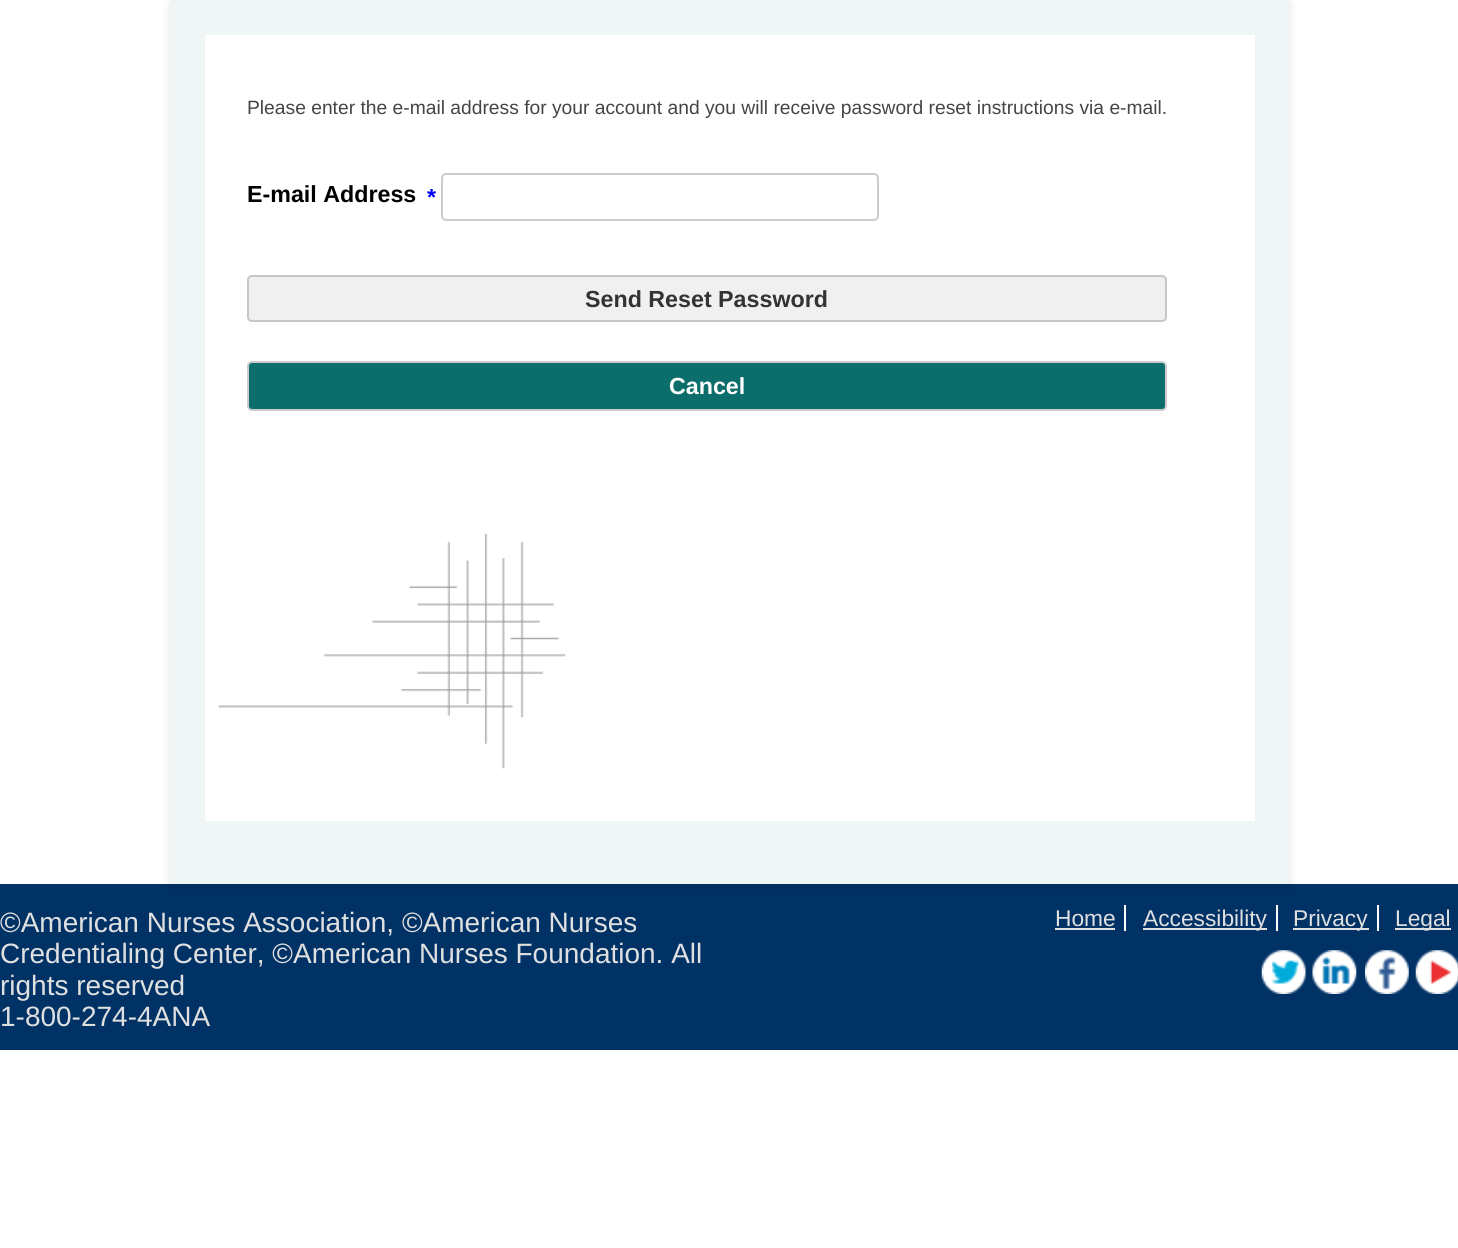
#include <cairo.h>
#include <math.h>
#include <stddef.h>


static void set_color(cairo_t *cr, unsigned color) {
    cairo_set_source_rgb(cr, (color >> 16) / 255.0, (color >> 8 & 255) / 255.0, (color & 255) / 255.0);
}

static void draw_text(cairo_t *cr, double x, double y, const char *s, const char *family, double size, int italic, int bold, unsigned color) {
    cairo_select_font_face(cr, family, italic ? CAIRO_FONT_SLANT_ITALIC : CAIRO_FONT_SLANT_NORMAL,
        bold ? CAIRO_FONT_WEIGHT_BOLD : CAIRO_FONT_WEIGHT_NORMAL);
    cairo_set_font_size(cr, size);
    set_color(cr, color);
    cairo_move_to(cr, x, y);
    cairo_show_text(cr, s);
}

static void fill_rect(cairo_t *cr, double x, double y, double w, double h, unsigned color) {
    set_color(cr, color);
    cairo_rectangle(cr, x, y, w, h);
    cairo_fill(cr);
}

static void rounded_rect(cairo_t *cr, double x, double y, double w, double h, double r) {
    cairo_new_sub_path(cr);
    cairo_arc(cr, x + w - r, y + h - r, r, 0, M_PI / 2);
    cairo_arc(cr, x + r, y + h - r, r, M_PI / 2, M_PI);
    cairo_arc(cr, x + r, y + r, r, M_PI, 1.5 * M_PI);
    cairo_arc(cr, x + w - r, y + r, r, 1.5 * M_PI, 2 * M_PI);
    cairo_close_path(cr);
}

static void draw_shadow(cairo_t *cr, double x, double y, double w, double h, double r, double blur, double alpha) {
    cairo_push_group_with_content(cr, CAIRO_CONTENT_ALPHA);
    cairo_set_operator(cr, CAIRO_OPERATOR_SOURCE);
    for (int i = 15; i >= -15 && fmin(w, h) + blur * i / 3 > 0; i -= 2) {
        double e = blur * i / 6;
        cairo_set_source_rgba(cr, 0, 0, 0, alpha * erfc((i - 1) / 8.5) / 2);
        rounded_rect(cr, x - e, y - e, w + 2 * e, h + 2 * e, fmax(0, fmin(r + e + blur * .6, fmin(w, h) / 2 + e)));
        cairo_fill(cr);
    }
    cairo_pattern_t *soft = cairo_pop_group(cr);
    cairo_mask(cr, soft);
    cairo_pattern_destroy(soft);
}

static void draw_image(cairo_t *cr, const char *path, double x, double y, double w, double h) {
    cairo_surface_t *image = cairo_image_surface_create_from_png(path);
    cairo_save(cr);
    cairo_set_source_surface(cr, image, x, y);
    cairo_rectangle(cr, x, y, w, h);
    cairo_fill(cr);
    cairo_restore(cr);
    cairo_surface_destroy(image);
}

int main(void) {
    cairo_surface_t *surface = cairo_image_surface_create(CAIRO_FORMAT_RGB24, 1458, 1248);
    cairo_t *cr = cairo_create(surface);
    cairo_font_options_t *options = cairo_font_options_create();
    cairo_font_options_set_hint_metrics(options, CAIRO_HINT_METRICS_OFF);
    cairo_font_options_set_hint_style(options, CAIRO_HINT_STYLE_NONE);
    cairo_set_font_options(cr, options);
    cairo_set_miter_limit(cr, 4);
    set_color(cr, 0xFFFFFF);
    cairo_paint(cr);
    fill_rect(cr, 0, 884, 1458, 166, 0x003266);
    set_color(cr, 0x000000);
    draw_shadow(cr, 170, 4, 1120, 883, 0, 4.5, 0.1);
    fill_rect(cr, 170, 0, 1120, 884, 0xF0F6F5);
    fill_rect(cr, 205, 35, 1050, 786, 0xFFFFFF);
    draw_text(cr, 247, 114, "Please enter the e-mail address for your account and you will receive password reset instructions via e-mail.", "Liberation Sans", 19.25, 0, 0, 0x454545);
    draw_text(cr, 247, 202, "E-mail Address", "Liberation Sans", 23.25, 0, 1, 0x000000);
    draw_text(cr, 427, 205, "*", "Liberation Sans", 23.25, 0, 1, 0x0000FF);
    rounded_rect(cr, 442, 174, 436, 46, 4);
    set_color(cr, 0xCCCCCC);
    cairo_stroke(cr);
    set_color(cr, 0xF0F0F0);
    rounded_rect(cr, 248, 276, 918, 45, 4);
    cairo_fill_preserve(cr);
    set_color(cr, 0xC7C7C7);
    cairo_stroke(cr);
    draw_text(cr, 585, 307, "Send Reset Password", "Liberation Sans", 23.25, 0, 1, 0x333333);
    set_color(cr, 0x0C6E6B);
    rounded_rect(cr, 248, 362, 918, 48, 4);
    cairo_fill_preserve(cr);
    set_color(cr, 0xCCCCCC);
    cairo_stroke(cr);
    draw_text(cr, 669, 394, "Cancel", "Liberation Sans", 23.25, 0, 1, 0xFFFFFF);
    draw_image(cr, "assets/img1.png", 218, 533, 348, 236);
    draw_text(cr, 0, 932, "©American Nurses Association, ©American Nurses", "Liberation Sans", 28, 0, 0, 0xE0E0E0);
    draw_text(cr, 0, 963, "Credentialing Center, ©American Nurses Foundation. All", "Liberation Sans", 28, 0, 0, 0xE0E0E0);
    draw_text(cr, 0, 995, "rights reserved", "Liberation Sans", 28, 0, 0, 0xE0E0E0);
    draw_text(cr, 0, 1026, "1-800-274-4ANA", "Liberation Sans", 28, 0, 0, 0xE0E0E0);
    draw_text(cr, 1055, 926, "Home", "Liberation Sans", 22.75, 0, 0, 0xE0E0E0);
    fill_rect(cr, 1124, 905, 2, 26, 0xFFFFFF);
    fill_rect(cr, 1055, 928, 60, 2, 0xE0E0E0);
    fill_rect(cr, 1143, 928, 124, 2, 0xE0E0E0);
    draw_text(cr, 1143, 926, "Accessibility", "Liberation Sans", 22.75, 0, 0, 0xE0E0E0);
    fill_rect(cr, 1276, 905, 2, 26, 0xFFFFFF);
    fill_rect(cr, 1293, 928, 76, 2, 0xE0E0E0);
    draw_text(cr, 1293, 926, "Privacy", "Liberation Sans", 22.75, 0, 0, 0xE0E0E0);
    fill_rect(cr, 1377, 905, 2, 26, 0xFFFFFF);
    fill_rect(cr, 1395, 928, 56, 2, 0xE0E0E0);
    draw_text(cr, 1395, 926, "Legal", "Liberation Sans", 22.75, 0, 0, 0xE0E0E0);
    draw_image(cr, "assets/img2.png", 1261, 950, 45, 44);
    draw_image(cr, "assets/img3.png", 1312, 950, 45, 44);
    draw_image(cr, "assets/img4.png", 1365, 950, 44, 44);
    draw_image(cr, "assets/img5.png", 1415, 950, 43, 44);
    cairo_surface_write_to_png(surface, "output.png");
    cairo_font_options_destroy(options);
    cairo_destroy(cr);
    cairo_surface_destroy(surface);
    return 0;
}
